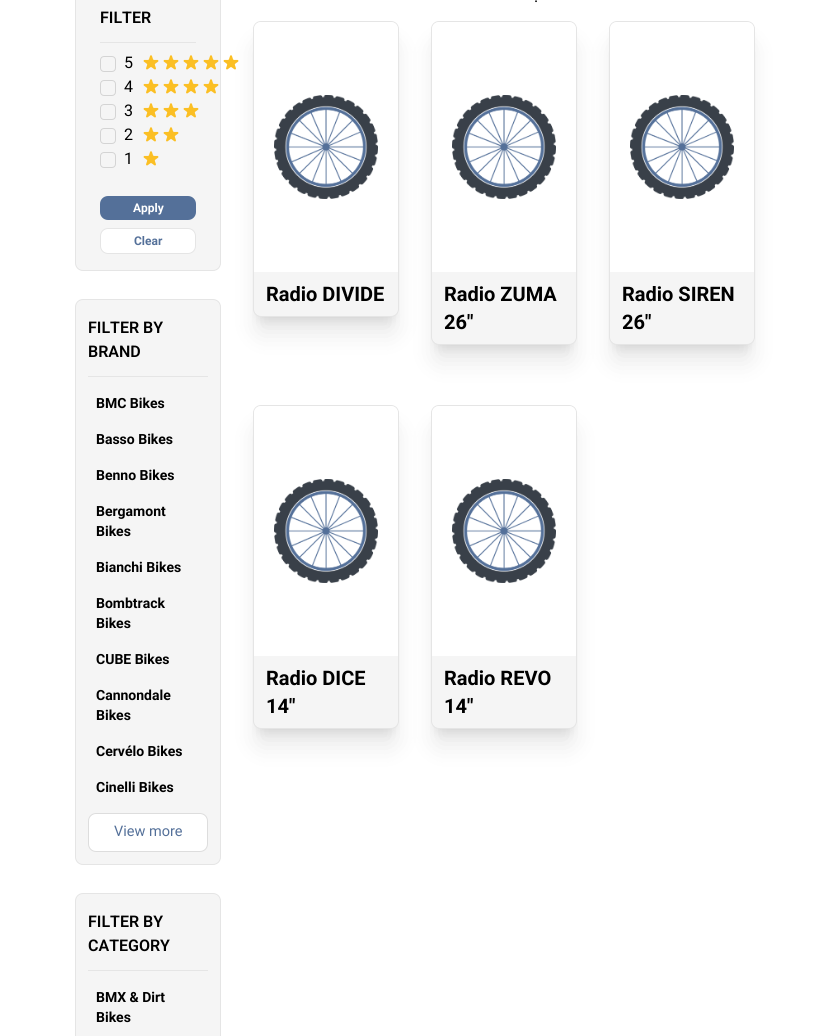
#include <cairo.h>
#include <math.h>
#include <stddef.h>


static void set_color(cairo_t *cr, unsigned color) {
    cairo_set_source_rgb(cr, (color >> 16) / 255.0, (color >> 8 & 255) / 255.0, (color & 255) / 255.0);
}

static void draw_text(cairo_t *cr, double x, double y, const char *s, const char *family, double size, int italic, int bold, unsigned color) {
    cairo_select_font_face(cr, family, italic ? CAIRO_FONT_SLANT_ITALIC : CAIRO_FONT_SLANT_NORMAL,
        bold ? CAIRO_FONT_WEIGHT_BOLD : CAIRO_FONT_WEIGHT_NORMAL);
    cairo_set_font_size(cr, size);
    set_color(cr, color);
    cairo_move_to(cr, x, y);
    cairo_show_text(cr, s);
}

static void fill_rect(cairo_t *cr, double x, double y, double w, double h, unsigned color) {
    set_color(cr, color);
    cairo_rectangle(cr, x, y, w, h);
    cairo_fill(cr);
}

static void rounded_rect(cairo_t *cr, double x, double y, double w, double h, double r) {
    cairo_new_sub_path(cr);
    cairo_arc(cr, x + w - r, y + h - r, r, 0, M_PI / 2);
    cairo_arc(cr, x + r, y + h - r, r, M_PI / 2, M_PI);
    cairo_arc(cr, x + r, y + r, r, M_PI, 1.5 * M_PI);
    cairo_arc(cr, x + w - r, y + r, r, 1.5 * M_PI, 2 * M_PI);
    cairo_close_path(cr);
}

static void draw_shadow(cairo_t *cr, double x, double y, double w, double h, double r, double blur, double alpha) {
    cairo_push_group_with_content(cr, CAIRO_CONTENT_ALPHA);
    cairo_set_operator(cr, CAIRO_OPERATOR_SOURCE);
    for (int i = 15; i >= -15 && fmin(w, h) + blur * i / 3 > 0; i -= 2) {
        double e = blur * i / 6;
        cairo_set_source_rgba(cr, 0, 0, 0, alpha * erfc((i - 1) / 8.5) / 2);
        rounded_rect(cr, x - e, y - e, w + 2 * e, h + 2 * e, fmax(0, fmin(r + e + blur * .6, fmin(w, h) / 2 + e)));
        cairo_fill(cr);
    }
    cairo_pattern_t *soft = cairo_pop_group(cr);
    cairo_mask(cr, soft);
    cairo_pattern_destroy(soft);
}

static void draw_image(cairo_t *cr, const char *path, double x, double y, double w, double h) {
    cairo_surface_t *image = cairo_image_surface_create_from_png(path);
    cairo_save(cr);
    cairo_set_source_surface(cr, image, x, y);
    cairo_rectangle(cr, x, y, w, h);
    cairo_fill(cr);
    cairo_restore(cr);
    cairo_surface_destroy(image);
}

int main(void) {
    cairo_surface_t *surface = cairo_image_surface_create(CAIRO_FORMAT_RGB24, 830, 1036);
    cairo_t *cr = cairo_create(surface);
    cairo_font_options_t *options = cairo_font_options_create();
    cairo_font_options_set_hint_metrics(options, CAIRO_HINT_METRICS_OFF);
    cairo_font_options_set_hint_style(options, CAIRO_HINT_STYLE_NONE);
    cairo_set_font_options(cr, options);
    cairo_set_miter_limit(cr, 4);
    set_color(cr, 0xFFFFFF);
    cairo_paint(cr);
    set_color(cr, 0xF5F5F5);
    rounded_rect(cr, 75.5, -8.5, 145, 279, 7.5);
    cairo_fill_preserve(cr);
    set_color(cr, 0xE5E5E5);
    cairo_set_line_width(cr, 1);
    cairo_stroke(cr);
    fill_rect(cr, 100, 42, 96, 1, 0xE5E5E5);
    draw_text(cr, 100, 23, "FILTER", "Roboto SemiBold", 16, 0, 0, 0x000000);
    rounded_rect(cr, 100.5, 56.5, 15, 15, 3.5);
    set_color(cr, 0xD4D4D4);
    cairo_stroke(cr);
    draw_text(cr, 124, 68, "5", "Roboto", 16, 0, 0, 0x000000);
    draw_image(cr, "assets/img1.png", 143, 55, 16, 15);
    draw_image(cr, "assets/img1.png", 163, 55, 16, 15);
    draw_image(cr, "assets/img1.png", 183, 55, 16, 15);
    draw_image(cr, "assets/img1.png", 203, 55, 16, 15);
    set_color(cr, 0xF5F5F5);
    rounded_rect(cr, 75.5, 299.5, 145, 565, 7.5);
    cairo_fill_preserve(cr);
    set_color(cr, 0xE5E5E5);
    cairo_stroke(cr);
    set_color(cr, 0x000000);
    draw_shadow(cr, 258, 46, 136, 286, 3, 12.5, 0.1);
    draw_image(cr, "assets/img2.png", 223, 55, 16, 15);
    rounded_rect(cr, 100.5, 80.5, 15, 15, 3.5);
    set_color(cr, 0xD4D4D4);
    cairo_stroke(cr);
    draw_text(cr, 124, 92, "4", "Roboto", 16, 0, 0, 0x000000);
    draw_image(cr, "assets/img1.png", 143, 79, 16, 15);
    draw_image(cr, "assets/img1.png", 163, 79, 16, 15);
    draw_image(cr, "assets/img1.png", 183, 79, 16, 15);
    draw_image(cr, "assets/img1.png", 203, 79, 16, 15);
    rounded_rect(cr, 100.5, 104.5, 15, 15, 3.5);
    set_color(cr, 0xD4D4D4);
    cairo_stroke(cr);
    draw_text(cr, 124, 116, "3", "Roboto", 16, 0, 0, 0x000000);
    draw_image(cr, "assets/img1.png", 143, 103, 16, 15);
    draw_image(cr, "assets/img1.png", 163, 103, 16, 15);
    draw_image(cr, "assets/img1.png", 183, 103, 16, 15);
    rounded_rect(cr, 100.5, 128.5, 15, 15, 3.5);
    set_color(cr, 0xD4D4D4);
    cairo_stroke(cr);
    draw_text(cr, 124, 140, "2", "Roboto", 16, 0, 0, 0x000000);
    draw_image(cr, "assets/img1.png", 143, 127, 16, 15);
    draw_image(cr, "assets/img1.png", 163, 127, 16, 15);
    rounded_rect(cr, 100.5, 152.5, 15, 15, 3.5);
    set_color(cr, 0xD4D4D4);
    cairo_stroke(cr);
    draw_text(cr, 124, 164, "1", "Roboto", 16, 0, 0, 0x000000);
    draw_image(cr, "assets/img1.png", 143, 151, 16, 15);
    set_color(cr, 0x547099);
    rounded_rect(cr, 100, 196, 96, 24, 8);
    cairo_fill(cr);
    draw_text(cr, 133, 212, "Apply", "Roboto", 12, 0, 1, 0xFFFFFF);
    rounded_rect(cr, 100.5, 228.5, 95, 25, 7.5);
    cairo_fill_preserve(cr);
    set_color(cr, 0xE5E5E5);
    cairo_stroke(cr);
    draw_text(cr, 134, 245, "Clear", "Roboto", 12, 0, 1, 0x547099);
    fill_rect(cr, 88, 376, 120, 1, 0xE5E5E5);
    draw_text(cr, 88, 333, "FILTER BY", "Roboto SemiBold", 16, 0, 0, 0x000000);
    draw_text(cr, 88, 357, "BRAND", "Roboto SemiBold", 16, 0, 0, 0x000000);
    draw_text(cr, 96, 408, "BMC Bikes", "Roboto", 14, 0, 1, 0x000000);
    draw_text(cr, 96, 444, "Basso Bikes", "Roboto", 14, 0, 1, 0x000000);
    draw_text(cr, 96, 480, "Benno Bikes", "Roboto", 14, 0, 1, 0x000000);
    draw_text(cr, 96, 516, "Bergamont", "Roboto", 14, 0, 1, 0x000000);
    draw_text(cr, 96, 536, "Bikes", "Roboto", 14, 0, 1, 0x000000);
    draw_text(cr, 96, 572, "Bianchi Bikes", "Roboto", 14, 0, 1, 0x000000);
    draw_text(cr, 96, 608, "Bombtrack", "Roboto", 14, 0, 1, 0x000000);
    draw_text(cr, 96, 628, "Bikes", "Roboto", 14, 0, 1, 0x000000);
    draw_text(cr, 96, 664, "CUBE Bikes", "Roboto", 14, 0, 1, 0x000000);
    draw_text(cr, 96, 700, "Cannondale", "Roboto", 14, 0, 1, 0x000000);
    draw_text(cr, 96, 720, "Bikes", "Roboto", 14, 0, 1, 0x000000);
    draw_text(cr, 96, 756, "Cervélo Bikes", "Roboto", 14, 0, 1, 0x000000);
    draw_text(cr, 96, 792, "Cinelli Bikes", "Roboto", 14, 0, 1, 0x000000);
    set_color(cr, 0xFFFFFF);
    rounded_rect(cr, 88.5, 813.5, 119, 38, 7.5);
    cairo_fill_preserve(cr);
    set_color(cr, 0xDDDDDD);
    cairo_stroke(cr);
    draw_text(cr, 114, 836, "View more", "Roboto", 14.5, 0, 0, 0x547099);
    set_color(cr, 0xF5F5F5);
    rounded_rect(cr, 75.5, 893.5, 145, 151, 7.5);
    cairo_fill_preserve(cr);
    set_color(cr, 0xE5E5E5);
    cairo_stroke(cr);
    fill_rect(cr, 88, 970, 120, 1, 0xE5E5E5);
    draw_text(cr, 88, 927, "FILTER BY", "Roboto SemiBold", 16, 0, 0, 0x000000);
    draw_text(cr, 88, 951, "CATEGORY", "Roboto SemiBold", 16, 0, 0, 0x000000);
    draw_text(cr, 96, 1002, "BMX & Dirt", "Roboto", 14, 0, 1, 0x000000);
    draw_text(cr, 96, 1022, "Bikes", "Roboto", 14, 0, 1, 0x000000);
    draw_text(cr, 534, 2, ".", "Roboto", 16, 0, 0, 0x000000);
    set_color(cr, 0x000000);
    draw_shadow(cr, 259, 35, 134, 284, 2, 5, 0.1);
    set_color(cr, 0xF5F5F5);
    rounded_rect(cr, 253.5, 21.5, 145, 295, 7.5);
    cairo_fill_preserve(cr);
    set_color(cr, 0xE5E5E5);
    cairo_stroke(cr);
    set_color(cr, 0x000000);
    draw_shadow(cr, 436, 46, 136, 314, 3, 12.5, 0.1);
    set_color(cr, 0xFFFFFF);
    cairo_new_path(cr);
    cairo_move_to(cr, 261, 22);
    cairo_line_to(cr, 391, 22);
    cairo_curve_to(cr, 395, 22, 398, 25, 398, 29);
    cairo_line_to(cr, 398, 272);
    cairo_line_to(cr, 254, 272);
    cairo_line_to(cr, 254, 29);
    cairo_curve_to(cr, 254, 25, 257, 22, 261, 22);
    cairo_close_path(cr);
    cairo_fill(cr);
    draw_image(cr, "assets/img3.png", 274, 95, 104, 104);
    draw_text(cr, 266, 301, "Radio DIVIDE", "Roboto", 20, 0, 1, 0x000000);
    set_color(cr, 0x000000);
    draw_shadow(cr, 437, 35, 134, 312, 2, 5, 0.1);
    set_color(cr, 0xF5F5F5);
    rounded_rect(cr, 431.5, 21.5, 145, 323, 7.5);
    cairo_fill_preserve(cr);
    set_color(cr, 0xE5E5E5);
    cairo_stroke(cr);
    set_color(cr, 0x000000);
    draw_shadow(cr, 614, 46, 136, 314, 3, 12.5, 0.1);
    set_color(cr, 0xFFFFFF);
    cairo_new_path(cr);
    cairo_move_to(cr, 439, 22);
    cairo_line_to(cr, 569, 22);
    cairo_curve_to(cr, 573, 22, 576, 25, 576, 29);
    cairo_line_to(cr, 576, 272);
    cairo_line_to(cr, 432, 272);
    cairo_line_to(cr, 432, 29);
    cairo_curve_to(cr, 432, 25, 435, 22, 439, 22);
    cairo_close_path(cr);
    cairo_fill(cr);
    draw_image(cr, "assets/img4.png", 452, 95, 104, 104);
    draw_text(cr, 444, 301, "Radio ZUMA", "Roboto", 20, 0, 1, 0x000000);
    draw_text(cr, 444, 329, "26\"", "Roboto", 20, 0, 1, 0x000000);
    set_color(cr, 0x000000);
    draw_shadow(cr, 615, 35, 134, 312, 2, 5, 0.1);
    set_color(cr, 0xF5F5F5);
    rounded_rect(cr, 609.5, 21.5, 145, 323, 7.5);
    cairo_fill_preserve(cr);
    set_color(cr, 0xE5E5E5);
    cairo_stroke(cr);
    set_color(cr, 0xFFFFFF);
    cairo_new_path(cr);
    cairo_move_to(cr, 617, 22);
    cairo_line_to(cr, 747, 22);
    cairo_curve_to(cr, 751, 22, 754, 25, 754, 29);
    cairo_line_to(cr, 754, 272);
    cairo_line_to(cr, 610, 272);
    cairo_line_to(cr, 610, 29);
    cairo_curve_to(cr, 610, 25, 613, 22, 617, 22);
    cairo_close_path(cr);
    cairo_fill(cr);
    draw_image(cr, "assets/img4.png", 630, 95, 104, 104);
    draw_text(cr, 622, 301, "Radio SIREN", "Roboto", 20, 0, 1, 0x000000);
    draw_text(cr, 622, 329, "26\"", "Roboto", 20, 0, 1, 0x000000);
    set_color(cr, 0x000000);
    draw_shadow(cr, 259, 419, 134, 312, 2, 5, 0.1);
    draw_shadow(cr, 258, 430, 136, 314, 3, 12.5, 0.1);
    set_color(cr, 0xF5F5F5);
    rounded_rect(cr, 253.5, 405.5, 145, 323, 7.5);
    cairo_fill_preserve(cr);
    set_color(cr, 0xE5E5E5);
    cairo_stroke(cr);
    set_color(cr, 0x000000);
    draw_shadow(cr, 436, 430, 136, 314, 3, 12.5, 0.1);
    set_color(cr, 0xFFFFFF);
    cairo_new_path(cr);
    cairo_move_to(cr, 261, 406);
    cairo_line_to(cr, 391, 406);
    cairo_curve_to(cr, 395, 406, 398, 409, 398, 413);
    cairo_line_to(cr, 398, 656);
    cairo_line_to(cr, 254, 656);
    cairo_line_to(cr, 254, 413);
    cairo_curve_to(cr, 254, 409, 257, 406, 261, 406);
    cairo_close_path(cr);
    cairo_fill(cr);
    draw_image(cr, "assets/img5.png", 274, 479, 104, 104);
    draw_text(cr, 266, 685, "Radio DICE", "Roboto", 20, 0, 1, 0x000000);
    draw_text(cr, 266, 713, "14\"", "Roboto", 20, 0, 1, 0x000000);
    set_color(cr, 0x000000);
    draw_shadow(cr, 437, 419, 134, 312, 2, 5, 0.1);
    set_color(cr, 0xF5F5F5);
    rounded_rect(cr, 431.5, 405.5, 145, 323, 7.5);
    cairo_fill_preserve(cr);
    set_color(cr, 0xE5E5E5);
    cairo_stroke(cr);
    set_color(cr, 0xFFFFFF);
    cairo_new_path(cr);
    cairo_move_to(cr, 439, 406);
    cairo_line_to(cr, 569, 406);
    cairo_curve_to(cr, 573, 406, 576, 409, 576, 413);
    cairo_line_to(cr, 576, 656);
    cairo_line_to(cr, 432, 656);
    cairo_line_to(cr, 432, 413);
    cairo_curve_to(cr, 432, 409, 435, 406, 439, 406);
    cairo_close_path(cr);
    cairo_fill(cr);
    draw_image(cr, "assets/img6.png", 452, 479, 104, 104);
    draw_text(cr, 444, 685, "Radio REVO", "Roboto", 20, 0, 1, 0x000000);
    draw_text(cr, 444, 713, "14\"", "Roboto", 20, 0, 1, 0x000000);
    cairo_surface_write_to_png(surface, "output.png");
    cairo_font_options_destroy(options);
    cairo_destroy(cr);
    cairo_surface_destroy(surface);
    return 0;
}
